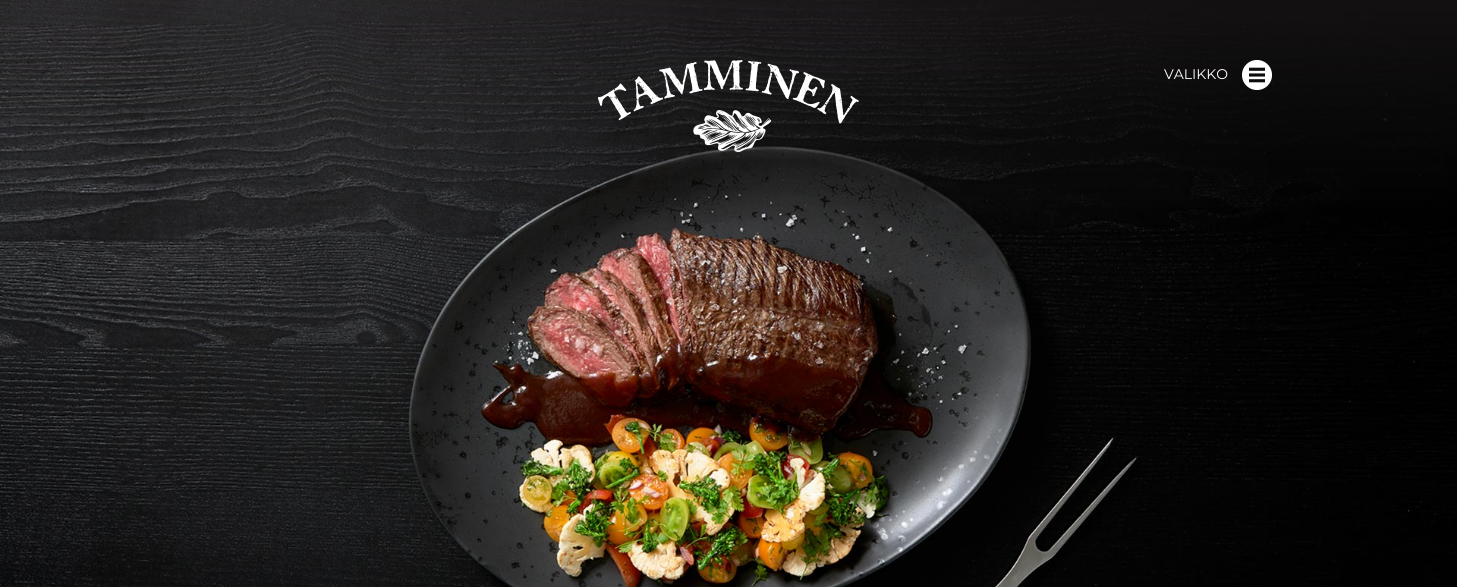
#include <cairo.h>
#include <math.h>
#include <stddef.h>


static void set_color(cairo_t *cr, unsigned color) {
    cairo_set_source_rgb(cr, (color >> 16) / 255.0, (color >> 8 & 255) / 255.0, (color & 255) / 255.0);
}

static void draw_text(cairo_t *cr, double x, double y, const char *s, const char *family, double size, int italic, int bold, unsigned color) {
    cairo_select_font_face(cr, family, italic ? CAIRO_FONT_SLANT_ITALIC : CAIRO_FONT_SLANT_NORMAL,
        bold ? CAIRO_FONT_WEIGHT_BOLD : CAIRO_FONT_WEIGHT_NORMAL);
    cairo_set_font_size(cr, size);
    set_color(cr, color);
    cairo_move_to(cr, x, y);
    cairo_show_text(cr, s);
}

static void draw_image(cairo_t *cr, const char *path, double x, double y, double w, double h) {
    cairo_surface_t *image = cairo_image_surface_create_from_png(path);
    cairo_save(cr);
    cairo_set_source_surface(cr, image, x, y);
    cairo_rectangle(cr, x, y, w, h);
    cairo_fill(cr);
    cairo_restore(cr);
    cairo_surface_destroy(image);
}

int main(void) {
    cairo_surface_t *surface = cairo_image_surface_create(CAIRO_FORMAT_RGB24, 1457, 587);
    cairo_t *cr = cairo_create(surface);
    cairo_font_options_t *options = cairo_font_options_create();
    cairo_font_options_set_hint_metrics(options, CAIRO_HINT_METRICS_OFF);
    cairo_font_options_set_hint_style(options, CAIRO_HINT_STYLE_NONE);
    cairo_set_font_options(cr, options);
    cairo_set_miter_limit(cr, 4);
    set_color(cr, 0xFFFFFF);
    cairo_paint(cr);
    draw_image(cr, "assets/img1.png", 0, 0, 1457, 587);
    draw_image(cr, "assets/img2.png", 0, 0, 1457, 207);
    draw_image(cr, "assets/img3.png", 598, 60, 261, 92);
    draw_text(cr, 1164, 79, "VALIKKO", "Montserrat", 14, 0, 0, 0xFFFFFF);
    draw_image(cr, "assets/img4.png", 1242, 60, 30, 30);
    cairo_surface_write_to_png(surface, "output.png");
    cairo_font_options_destroy(options);
    cairo_destroy(cr);
    cairo_surface_destroy(surface);
    return 0;
}
